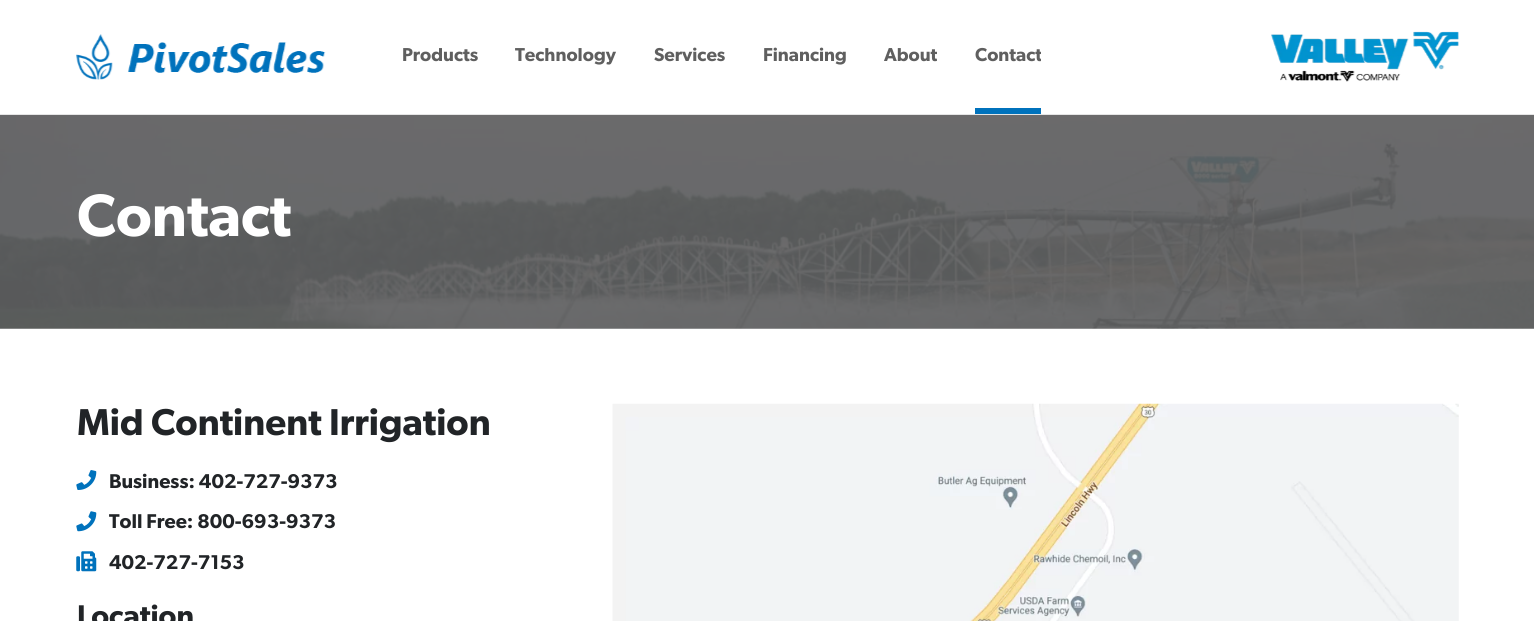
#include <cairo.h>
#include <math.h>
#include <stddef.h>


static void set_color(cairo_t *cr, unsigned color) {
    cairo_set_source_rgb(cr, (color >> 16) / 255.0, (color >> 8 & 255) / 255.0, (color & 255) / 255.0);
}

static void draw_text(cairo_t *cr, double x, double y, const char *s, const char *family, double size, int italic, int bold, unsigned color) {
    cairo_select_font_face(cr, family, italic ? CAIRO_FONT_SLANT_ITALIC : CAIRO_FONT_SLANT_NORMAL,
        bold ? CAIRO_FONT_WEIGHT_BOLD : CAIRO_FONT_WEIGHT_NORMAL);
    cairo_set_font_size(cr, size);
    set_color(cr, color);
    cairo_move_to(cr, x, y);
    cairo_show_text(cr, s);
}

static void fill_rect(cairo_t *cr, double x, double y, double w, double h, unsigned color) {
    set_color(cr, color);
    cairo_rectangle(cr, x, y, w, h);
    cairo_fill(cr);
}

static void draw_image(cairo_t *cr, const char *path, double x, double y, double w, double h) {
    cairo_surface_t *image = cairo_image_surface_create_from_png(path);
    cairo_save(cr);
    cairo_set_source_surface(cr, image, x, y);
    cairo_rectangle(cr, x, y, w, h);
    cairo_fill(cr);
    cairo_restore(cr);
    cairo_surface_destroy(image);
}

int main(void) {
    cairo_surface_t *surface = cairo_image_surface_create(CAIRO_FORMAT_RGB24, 1534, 621);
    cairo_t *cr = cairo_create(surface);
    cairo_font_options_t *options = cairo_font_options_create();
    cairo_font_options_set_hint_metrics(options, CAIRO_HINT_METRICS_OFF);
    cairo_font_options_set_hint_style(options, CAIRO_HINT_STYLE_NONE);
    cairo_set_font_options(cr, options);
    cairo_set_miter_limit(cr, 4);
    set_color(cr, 0xFFFFFF);
    cairo_paint(cr);
    fill_rect(cr, 0, 114, 1534, 1, 0xE5E5E5);
    draw_image(cr, "assets/img1.png", 76, 34, 250, 46);
    draw_text(cr, 402, 61, "Products", "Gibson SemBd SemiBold", 18.75, 0, 0, 0x5F5F5F);
    draw_text(cr, 515, 61, "Technology", "Gibson SemBd SemiBold", 18.75, 0, 0, 0x5F5F5F);
    draw_text(cr, 654, 61, "Services", "Gibson SemBd SemiBold", 18.75, 0, 0, 0x5F5F5F);
    draw_text(cr, 763, 61, "Financing", "Gibson SemBd SemiBold", 18.75, 0, 0, 0x5F5F5F);
    draw_text(cr, 884, 61, "About", "Gibson SemBd SemiBold", 18.75, 0, 0, 0x5F5F5F);
    fill_rect(cr, 975, 108, 66, 6, 0x0072BC);
    cairo_save(cr);
    cairo_rectangle(cr, 975, 0, 66, 108);
    cairo_clip(cr);
    draw_text(cr, 975, 61, "Contact", "Gibson SemBd SemiBold", 18.75, 0, 0, 0x5F5F5F);
    cairo_restore(cr);
    draw_image(cr, "assets/img2.png", 1271, 31, 188, 51);
    draw_image(cr, "assets/img3.png", 0, 115, 1534, 214);
    draw_text(cr, 77, 236, "Contact", "Gibson SemBd SemiBold", 60, 0, 0, 0xFFFFFF);
    draw_text(cr, 77, 435, "Mid Continent Irrigation", "Gibson SemBd SemiBold", 37.5, 0, 0, 0x212427);
    draw_image(cr, "assets/img4.png", 76, 470, 21, 20);
    draw_text(cr, 109, 488, "Business: 402-727-9373", "Gibson SemBd SemiBold", 20, 0, 0, 0x212427);
    draw_image(cr, "assets/img5.png", 76, 511, 21, 21);
    draw_text(cr, 109, 528, "Toll Free: 800-693-9373", "Gibson SemBd SemiBold", 20, 0, 0, 0x212427);
    draw_image(cr, "assets/img6.png", 76, 551, 21, 21);
    draw_text(cr, 109, 569, "402-727-7153", "Gibson SemBd SemiBold", 20, 0, 0, 0x212427);
    draw_text(cr, 77, 626, "Location", "Gibson SemBd SemiBold", 30, 0, 0, 0x212427);
    draw_image(cr, "assets/img7.png", 612, 403, 847, 218);
    cairo_surface_write_to_png(surface, "output.png");
    cairo_font_options_destroy(options);
    cairo_destroy(cr);
    cairo_surface_destroy(surface);
    return 0;
}
